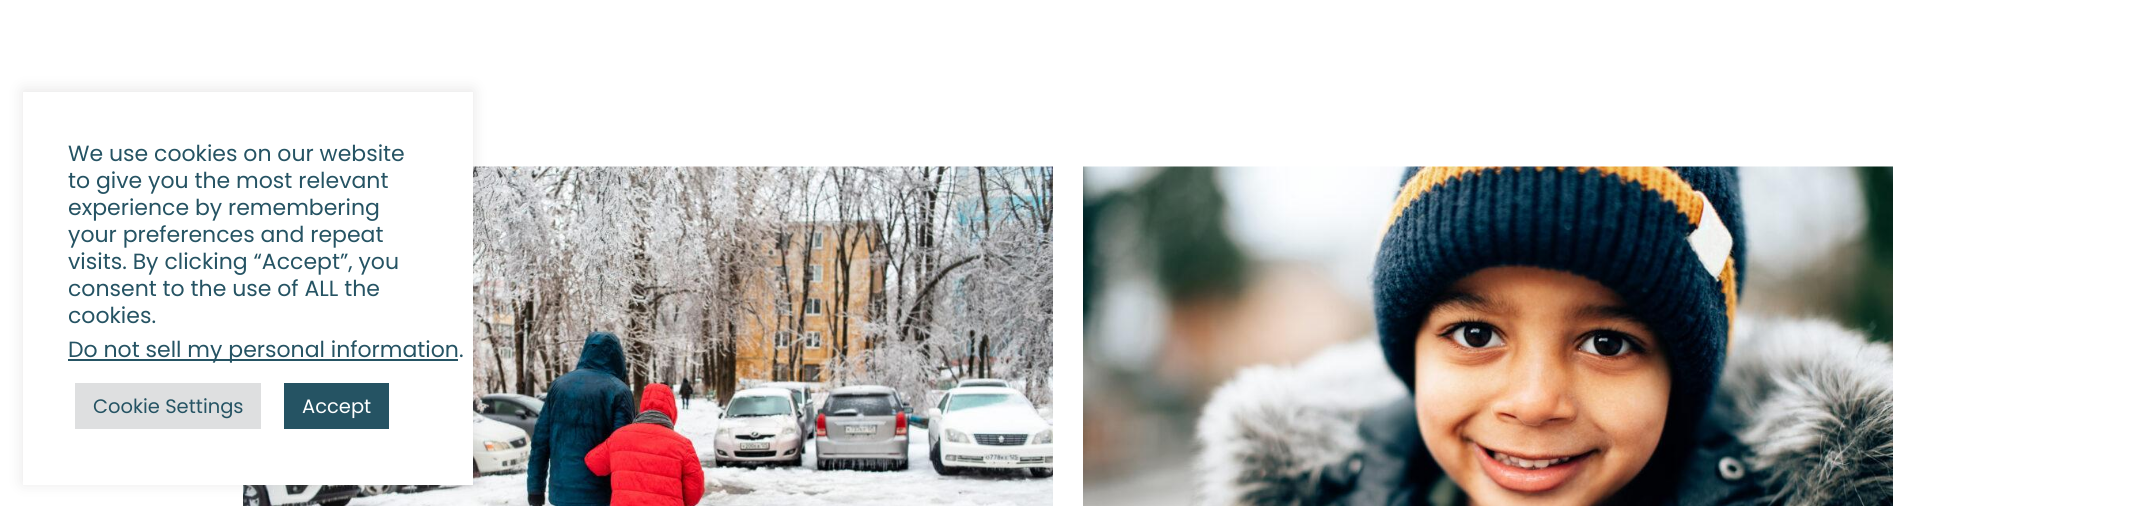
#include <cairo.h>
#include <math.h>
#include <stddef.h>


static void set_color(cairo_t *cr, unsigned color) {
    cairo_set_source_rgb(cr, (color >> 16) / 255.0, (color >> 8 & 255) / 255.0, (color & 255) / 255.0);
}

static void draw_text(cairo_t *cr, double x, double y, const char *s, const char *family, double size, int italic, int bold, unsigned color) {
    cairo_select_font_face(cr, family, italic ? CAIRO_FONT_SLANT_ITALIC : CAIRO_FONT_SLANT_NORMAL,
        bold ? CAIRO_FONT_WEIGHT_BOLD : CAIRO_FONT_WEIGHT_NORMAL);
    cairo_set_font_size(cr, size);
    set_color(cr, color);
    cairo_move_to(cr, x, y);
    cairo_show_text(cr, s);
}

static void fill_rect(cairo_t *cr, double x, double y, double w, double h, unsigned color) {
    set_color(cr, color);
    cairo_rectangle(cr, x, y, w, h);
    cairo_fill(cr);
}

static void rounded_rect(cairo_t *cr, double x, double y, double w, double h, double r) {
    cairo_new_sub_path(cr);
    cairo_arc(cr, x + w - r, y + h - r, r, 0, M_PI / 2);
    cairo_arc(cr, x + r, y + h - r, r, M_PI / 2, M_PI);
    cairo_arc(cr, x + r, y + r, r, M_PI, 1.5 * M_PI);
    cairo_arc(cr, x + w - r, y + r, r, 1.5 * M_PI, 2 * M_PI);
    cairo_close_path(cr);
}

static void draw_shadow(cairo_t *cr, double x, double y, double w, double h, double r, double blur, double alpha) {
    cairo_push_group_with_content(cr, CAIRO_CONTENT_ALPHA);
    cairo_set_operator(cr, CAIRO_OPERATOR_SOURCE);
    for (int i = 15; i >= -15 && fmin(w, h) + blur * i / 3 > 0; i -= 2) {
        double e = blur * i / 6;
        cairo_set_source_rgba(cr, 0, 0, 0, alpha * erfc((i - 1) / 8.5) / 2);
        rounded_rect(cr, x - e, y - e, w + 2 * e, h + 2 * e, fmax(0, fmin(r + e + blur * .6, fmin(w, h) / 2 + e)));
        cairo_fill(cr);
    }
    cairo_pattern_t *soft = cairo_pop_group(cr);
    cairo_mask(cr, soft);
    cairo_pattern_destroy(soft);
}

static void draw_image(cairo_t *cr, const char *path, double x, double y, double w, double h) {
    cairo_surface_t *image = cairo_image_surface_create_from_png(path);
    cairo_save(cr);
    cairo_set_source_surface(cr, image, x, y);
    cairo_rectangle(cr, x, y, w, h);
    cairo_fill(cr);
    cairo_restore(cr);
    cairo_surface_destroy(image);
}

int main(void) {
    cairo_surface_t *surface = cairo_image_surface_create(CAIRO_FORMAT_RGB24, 2136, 506);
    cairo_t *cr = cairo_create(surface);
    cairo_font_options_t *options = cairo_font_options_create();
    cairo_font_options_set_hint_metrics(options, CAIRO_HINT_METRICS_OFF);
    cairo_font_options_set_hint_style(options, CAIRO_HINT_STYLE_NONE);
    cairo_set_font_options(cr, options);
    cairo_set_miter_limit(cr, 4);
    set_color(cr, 0xFFFFFF);
    cairo_paint(cr);
    draw_image(cr, "assets/img1.png", 243, 166, 810, 340);
    set_color(cr, 0xACABAB);
    draw_shadow(cr, 23, 90, 450, 393, 0, 7.5, 0.3);
    fill_rect(cr, 23, 92, 450, 393, 0xFFFFFF);
    draw_text(cr, 68, 161, "We use cookies on our website", "Poppins", 22, 0, 0, 0x255363);
    draw_text(cr, 68, 188, "to give you the most relevant", "Poppins", 22, 0, 0, 0x255363);
    draw_text(cr, 68, 215, "experience by remembering", "Poppins", 22, 0, 0, 0x255363);
    draw_text(cr, 68, 242, "your preferences and repeat", "Poppins", 22, 0, 0, 0x255363);
    draw_text(cr, 68, 269, "visits. By clicking “Accept”, you", "Poppins", 22, 0, 0, 0x255363);
    draw_text(cr, 68, 296, "consent to the use of ALL the", "Poppins", 22, 0, 0, 0x255363);
    draw_text(cr, 68, 323, "cookies.", "Poppins", 22, 0, 0, 0x255363);
    fill_rect(cr, 68, 359, 390, 2, 0x255363);
    draw_text(cr, 68, 357, "Do not sell my personal information.", "Poppins", 22, 0, 0, 0x255363);
    fill_rect(cr, 75, 383, 186, 46, 0xDEDFE0);
    draw_text(cr, 93, 413, "Cookie Settings", "Poppins", 19.5, 0, 0, 0x255363);
    fill_rect(cr, 284, 383, 105, 46, 0x255363);
    draw_text(cr, 302, 413, "Accept", "Poppins", 19.5, 0, 0, 0xFFFFFF);
    draw_image(cr, "assets/img2.png", 1083, 166, 810, 340);
    cairo_surface_write_to_png(surface, "output.png");
    cairo_font_options_destroy(options);
    cairo_destroy(cr);
    cairo_surface_destroy(surface);
    return 0;
}
